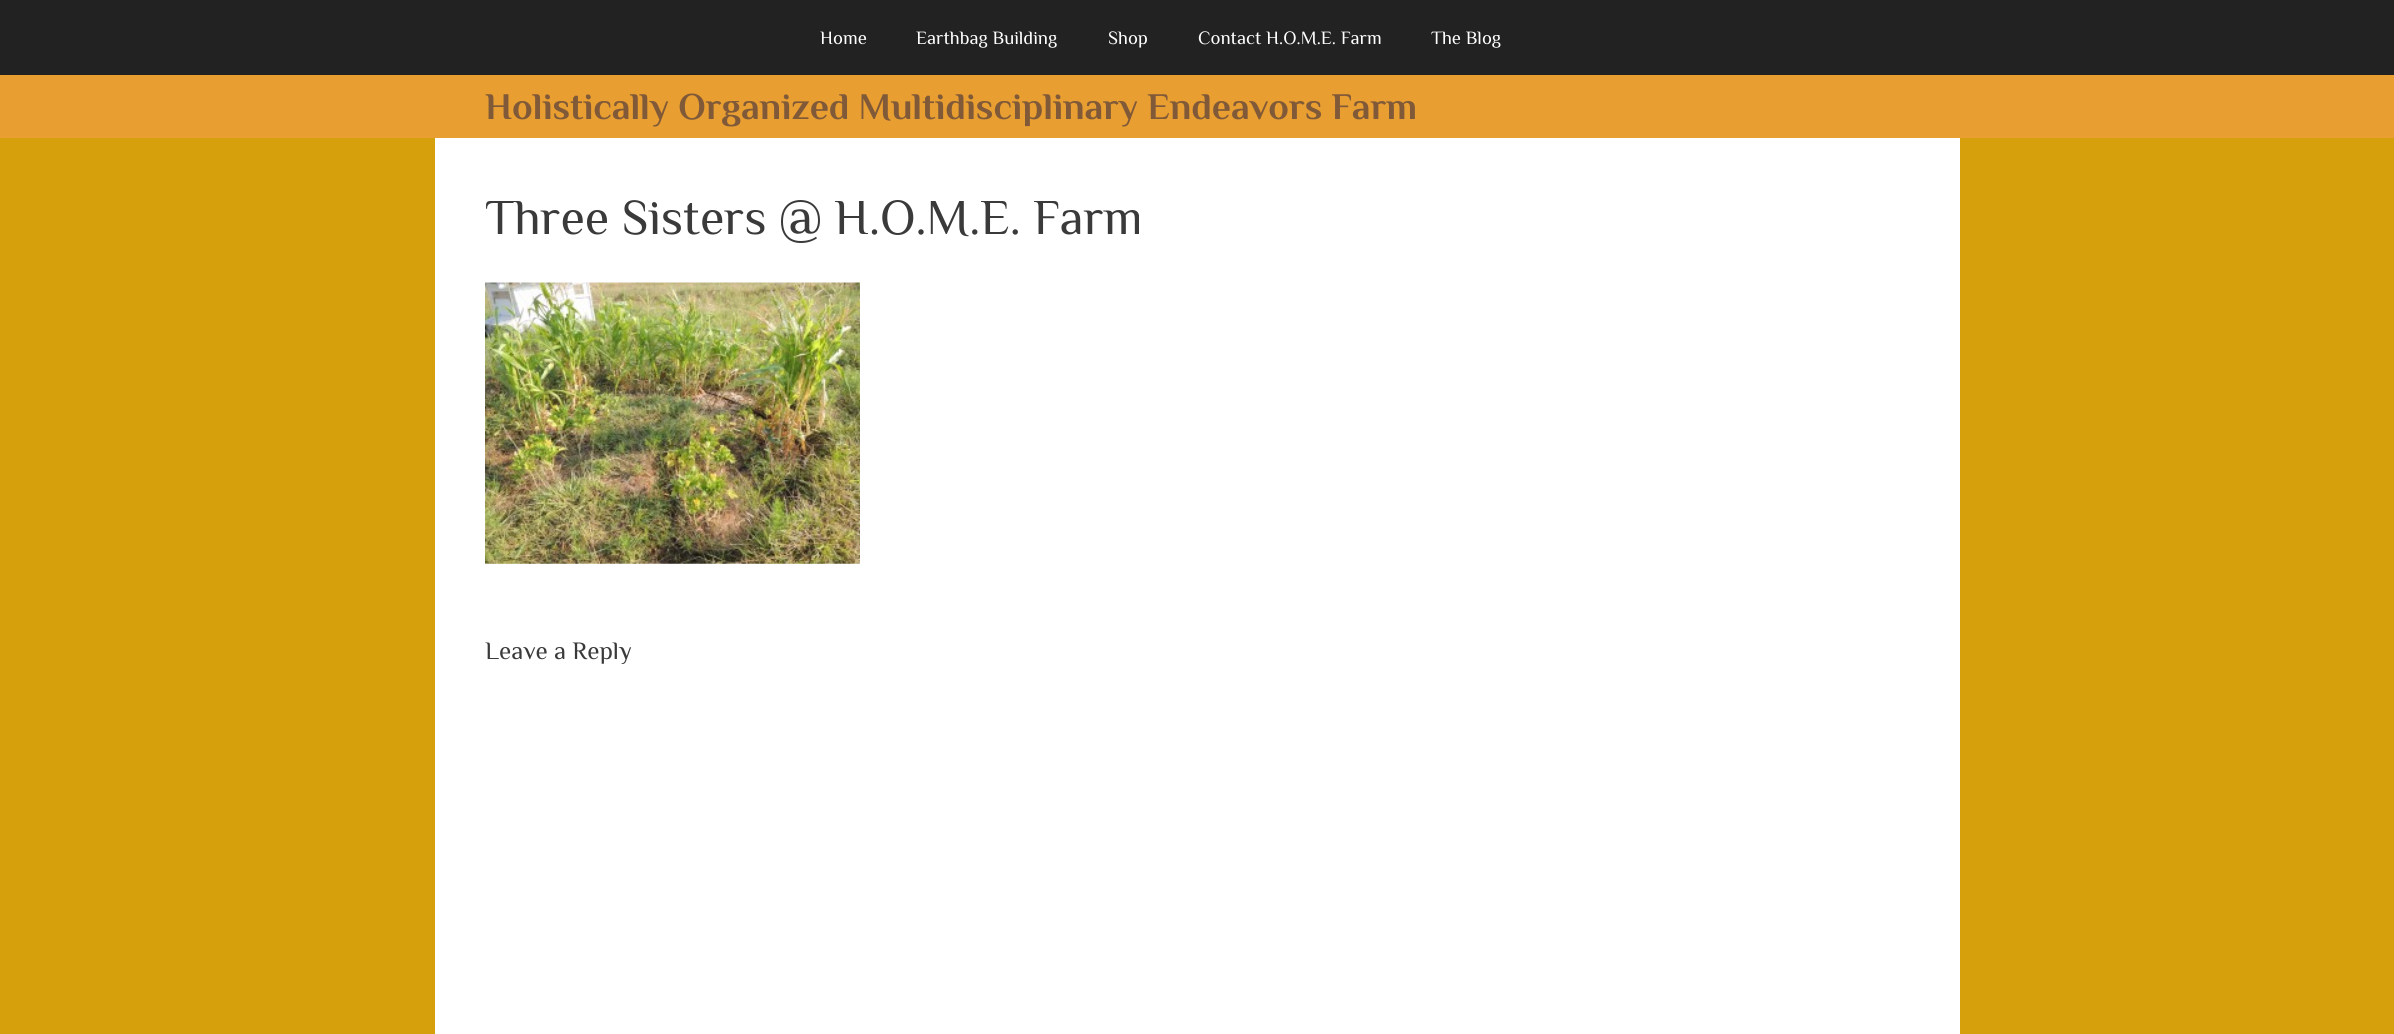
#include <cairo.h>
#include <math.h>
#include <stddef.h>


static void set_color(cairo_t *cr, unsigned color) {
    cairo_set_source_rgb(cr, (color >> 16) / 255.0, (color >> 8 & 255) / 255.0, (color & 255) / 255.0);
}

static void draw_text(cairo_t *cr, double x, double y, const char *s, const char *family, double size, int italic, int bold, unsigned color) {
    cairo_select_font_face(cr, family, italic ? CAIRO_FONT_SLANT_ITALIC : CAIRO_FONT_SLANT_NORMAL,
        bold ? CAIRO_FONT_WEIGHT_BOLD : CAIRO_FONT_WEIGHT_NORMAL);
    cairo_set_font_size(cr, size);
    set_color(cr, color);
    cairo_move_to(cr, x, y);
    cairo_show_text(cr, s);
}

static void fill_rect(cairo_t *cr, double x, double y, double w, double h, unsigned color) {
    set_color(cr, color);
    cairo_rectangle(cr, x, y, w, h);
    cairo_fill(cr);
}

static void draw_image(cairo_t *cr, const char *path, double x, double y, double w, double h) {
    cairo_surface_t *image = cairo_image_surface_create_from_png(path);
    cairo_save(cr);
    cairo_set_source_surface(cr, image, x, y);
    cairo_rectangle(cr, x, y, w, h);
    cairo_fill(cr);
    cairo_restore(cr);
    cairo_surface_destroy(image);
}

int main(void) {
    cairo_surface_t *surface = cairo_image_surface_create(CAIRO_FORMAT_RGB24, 2394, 1034);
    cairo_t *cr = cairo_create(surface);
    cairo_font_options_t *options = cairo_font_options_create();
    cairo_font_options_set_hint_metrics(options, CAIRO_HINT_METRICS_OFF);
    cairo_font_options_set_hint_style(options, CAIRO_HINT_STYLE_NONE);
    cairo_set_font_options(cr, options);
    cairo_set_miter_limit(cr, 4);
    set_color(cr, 0xD6A00C);
    cairo_paint(cr);
    fill_rect(cr, 0, 0, 2394, 75, 0x222222);
    draw_text(cr, 820, 44, "Home", "Philosopher", 18.75, 0, 0, 0xFFFFFF);
    draw_text(cr, 916, 44, "Earthbag Building", "Philosopher", 18.75, 0, 0, 0xFFFFFF);
    draw_text(cr, 1108, 44, "Shop", "Philosopher", 18.75, 0, 0, 0xFFFFFF);
    draw_text(cr, 1198, 44, "Contact H.O.M.E. Farm", "Philosopher", 18.75, 0, 0, 0xFFFFFF);
    draw_text(cr, 1431, 44, "The Blog", "Philosopher", 18.75, 0, 0, 0xFFFFFF);
    fill_rect(cr, 0, 75, 2394, 63, 0xE89E30);
    draw_text(cr, 485, 119, "Holistically Organized Multidisciplinary Endeavors Farm", "Philosopher", 37.5, 0, 1, 0x7F5938);
    fill_rect(cr, 435, 138, 1525, 896, 0xFFFFFF);
    draw_text(cr, 485, 234, "Three Sisters @ H.O.M.E. Farm", "Philosopher", 50, 0, 0, 0x3A3A3A);
    draw_image(cr, "assets/img1.png", 485, 282, 375, 282);
    draw_text(cr, 485, 659, "Leave a Reply", "Philosopher", 25, 0, 0, 0x3A3A3A);
    cairo_surface_write_to_png(surface, "output.png");
    cairo_font_options_destroy(options);
    cairo_destroy(cr);
    cairo_surface_destroy(surface);
    return 0;
}
